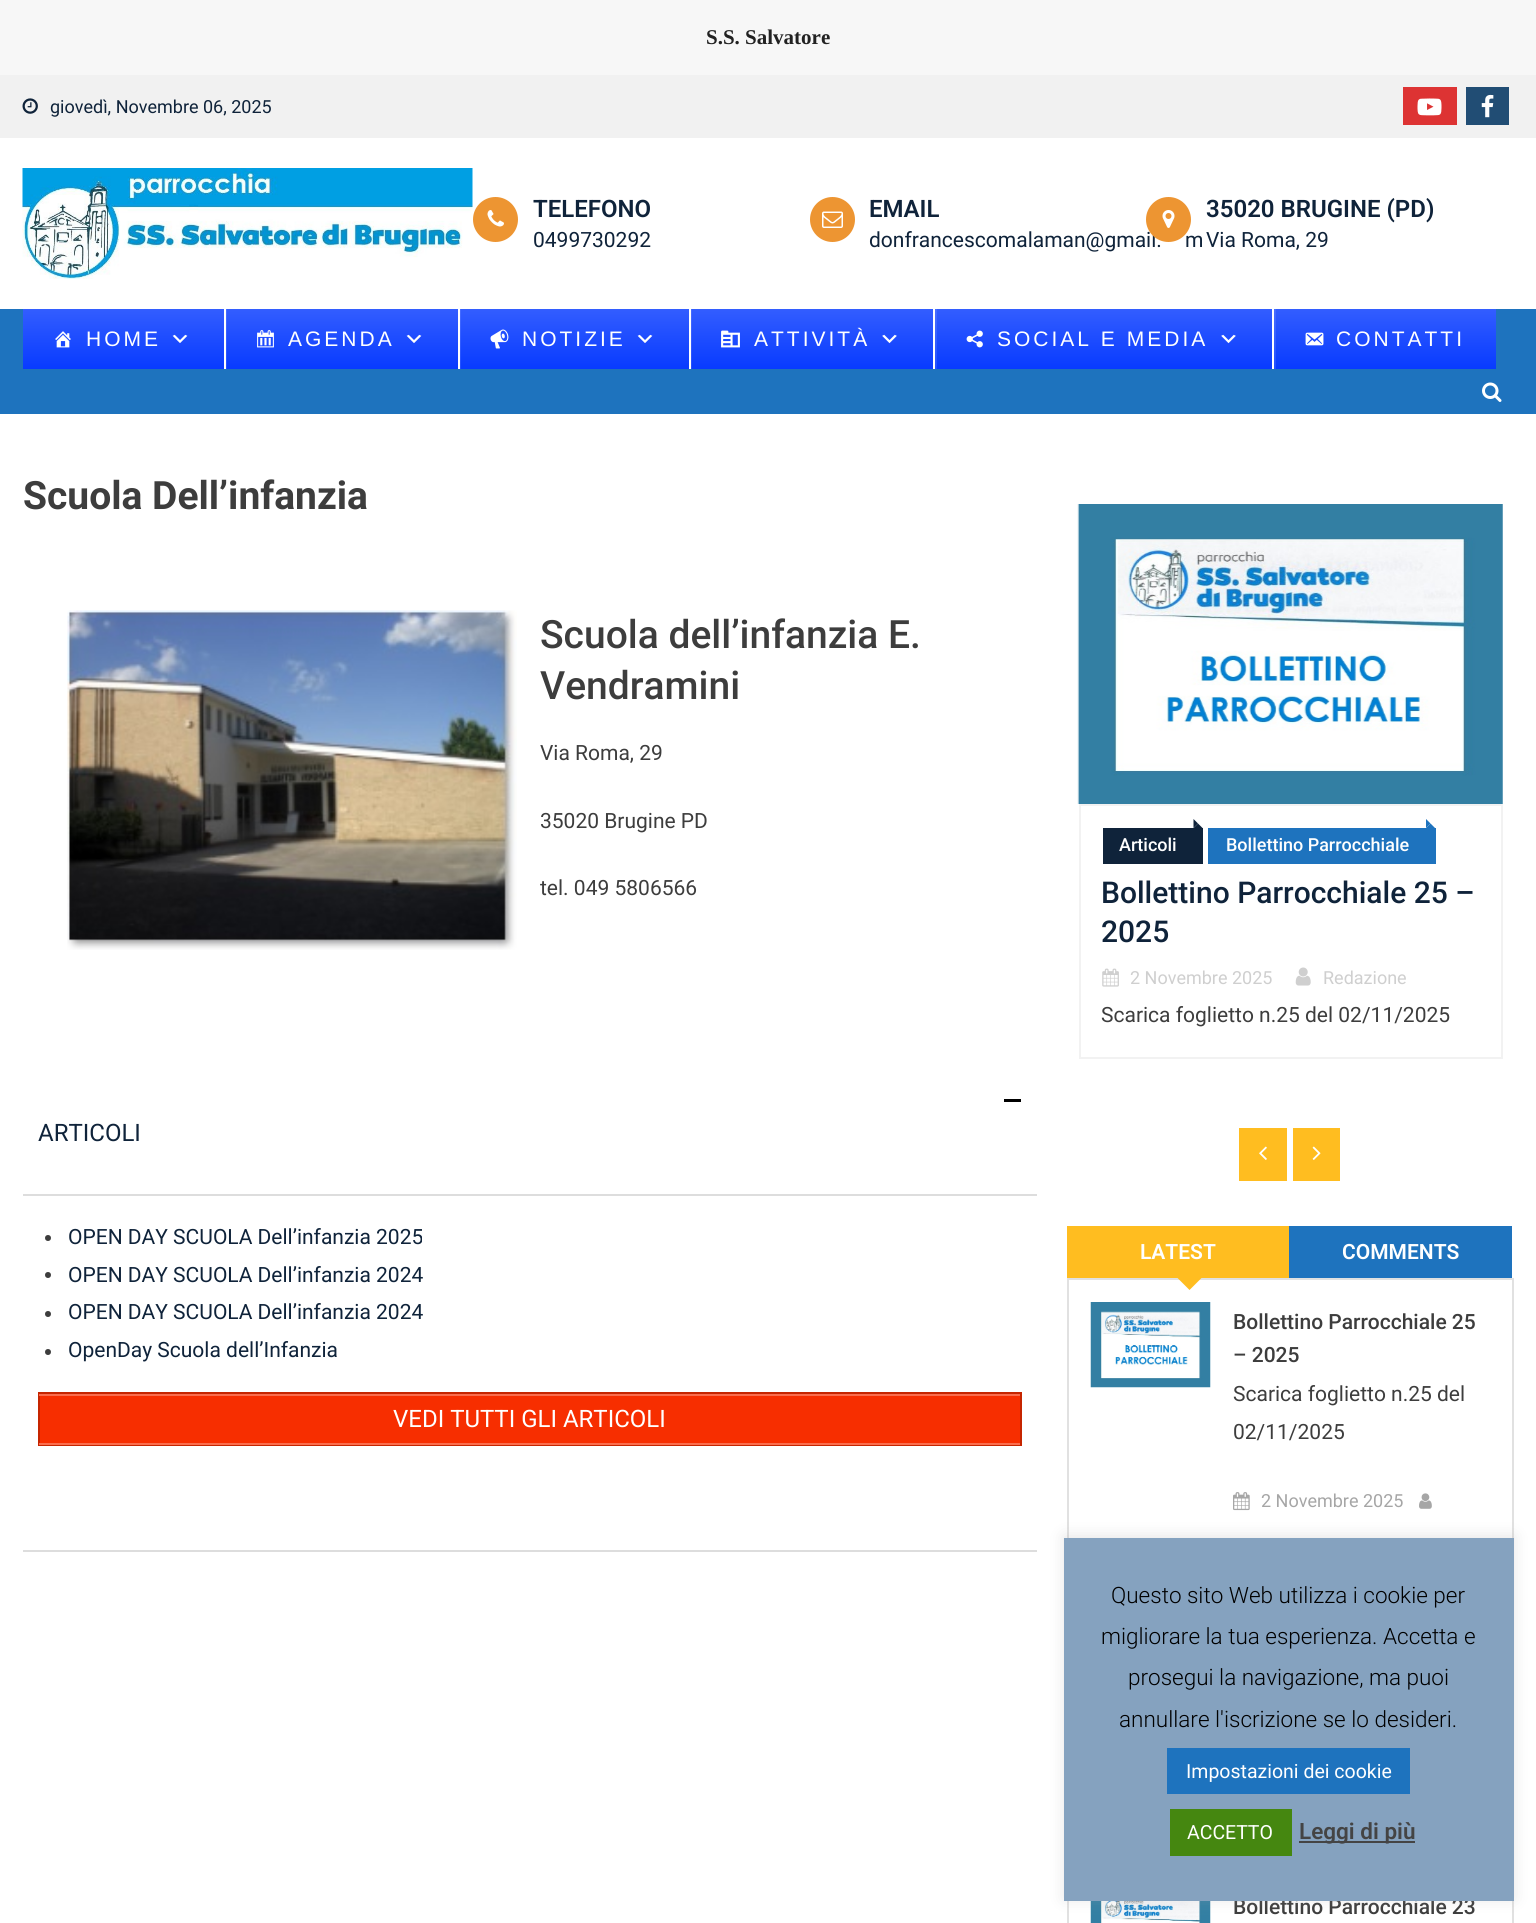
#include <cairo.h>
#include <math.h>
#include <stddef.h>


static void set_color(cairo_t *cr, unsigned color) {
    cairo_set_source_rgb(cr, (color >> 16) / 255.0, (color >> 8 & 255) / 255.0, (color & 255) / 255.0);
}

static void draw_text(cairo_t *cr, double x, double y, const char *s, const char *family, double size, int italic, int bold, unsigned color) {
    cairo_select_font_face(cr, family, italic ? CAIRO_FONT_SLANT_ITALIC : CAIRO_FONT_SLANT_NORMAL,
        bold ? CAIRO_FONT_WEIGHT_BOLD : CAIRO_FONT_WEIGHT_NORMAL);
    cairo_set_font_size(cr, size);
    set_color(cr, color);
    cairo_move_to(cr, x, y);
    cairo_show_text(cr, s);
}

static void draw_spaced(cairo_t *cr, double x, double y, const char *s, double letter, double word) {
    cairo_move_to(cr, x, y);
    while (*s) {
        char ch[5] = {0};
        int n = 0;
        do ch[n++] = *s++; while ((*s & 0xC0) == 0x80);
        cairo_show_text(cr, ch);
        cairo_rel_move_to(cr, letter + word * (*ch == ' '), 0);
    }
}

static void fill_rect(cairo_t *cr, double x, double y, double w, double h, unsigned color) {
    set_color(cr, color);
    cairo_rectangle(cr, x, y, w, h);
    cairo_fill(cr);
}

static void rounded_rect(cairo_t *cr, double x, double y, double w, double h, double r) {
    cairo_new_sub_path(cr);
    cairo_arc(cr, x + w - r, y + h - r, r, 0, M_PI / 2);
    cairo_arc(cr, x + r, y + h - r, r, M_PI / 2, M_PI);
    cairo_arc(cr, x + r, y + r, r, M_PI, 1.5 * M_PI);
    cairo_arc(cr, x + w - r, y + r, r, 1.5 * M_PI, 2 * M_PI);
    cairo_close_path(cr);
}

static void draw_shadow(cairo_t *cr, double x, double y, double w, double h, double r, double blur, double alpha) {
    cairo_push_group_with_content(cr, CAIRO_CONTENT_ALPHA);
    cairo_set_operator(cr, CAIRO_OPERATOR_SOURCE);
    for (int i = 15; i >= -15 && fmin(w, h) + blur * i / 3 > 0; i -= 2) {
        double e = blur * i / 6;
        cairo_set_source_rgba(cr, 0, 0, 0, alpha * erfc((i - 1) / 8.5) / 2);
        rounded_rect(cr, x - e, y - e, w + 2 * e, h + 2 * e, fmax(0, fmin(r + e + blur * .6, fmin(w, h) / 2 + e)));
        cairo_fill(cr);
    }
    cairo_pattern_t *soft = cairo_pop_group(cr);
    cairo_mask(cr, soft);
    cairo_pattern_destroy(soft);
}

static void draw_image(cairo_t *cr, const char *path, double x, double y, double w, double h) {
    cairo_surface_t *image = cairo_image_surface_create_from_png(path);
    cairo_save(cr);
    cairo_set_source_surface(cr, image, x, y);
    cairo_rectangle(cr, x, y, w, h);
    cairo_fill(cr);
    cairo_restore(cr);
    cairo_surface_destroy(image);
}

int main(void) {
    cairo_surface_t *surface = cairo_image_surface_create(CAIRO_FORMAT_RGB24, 1536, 1923);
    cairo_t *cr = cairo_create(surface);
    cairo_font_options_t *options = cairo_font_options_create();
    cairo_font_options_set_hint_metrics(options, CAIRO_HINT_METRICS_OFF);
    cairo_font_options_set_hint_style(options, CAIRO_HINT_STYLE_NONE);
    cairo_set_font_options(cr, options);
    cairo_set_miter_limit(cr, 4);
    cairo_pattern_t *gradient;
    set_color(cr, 0xFFFFFF);
    cairo_paint(cr);
    fill_rect(cr, 0, 0, 1536, 75, 0xF7F7F7);
    draw_text(cr, 706, 44, "S.S. Salvatore", "Liberation Serif", 21, 0, 1, 0x222222);
    fill_rect(cr, 0, 75, 1536, 63, 0xF1F1F1);
    draw_image(cr, "assets/img1.png", 22, 98, 16, 16);
    draw_text(cr, 50, 113, "giovedì, Novembre 06, 2025", "Roboto", 18, 0, 0, 0x0F233A);
    fill_rect(cr, 1403, 87, 54, 38, 0xDD3333);
    draw_image(cr, "assets/img2.png", 1417, 98, 25, 18);
    fill_rect(cr, 1466, 87, 43, 38, 0x214D74);
    draw_image(cr, "assets/img3.png", 1481, 94, 13, 24);
    draw_image(cr, "assets/img4.png", 22, 168, 451, 111);
    set_color(cr, 0xED9532);
    cairo_arc(cr, 495.5, 219.5, 22.5, 0, 2 * M_PI);
    cairo_fill(cr);
    draw_image(cr, "assets/img5.png", 487, 210, 17, 17);
    draw_text(cr, 533, 217, "TELEFONO", "Roboto SemiBold", 24, 0, 0, 0x0F233A);
    draw_text(cr, 533, 247, "0499730292", "Roboto", 21, 0, 0, 0x0F233A);
    set_color(cr, 0xED9532);
    cairo_new_path(cr);
    cairo_arc(cr, 832.5, 219.5, 22.5, 0, 2 * M_PI);
    cairo_fill(cr);
    draw_image(cr, "assets/img6.png", 822, 211, 21, 17);
    draw_text(cr, 869, 217, "EMAIL", "Roboto SemiBold", 24, 0, 0, 0x0F233A);
    draw_text(cr, 869, 247, "donfrancescomalaman@gmail.", "Roboto", 21, 0, 0, 0x0F233A);
    draw_text(cr, 1185, 247, "m", "Roboto", 21, 0, 0, 0x0F233A);
    set_color(cr, 0xED9532);
    cairo_new_path(cr);
    cairo_arc(cr, 1168.5, 219.5, 22.5, 0, 2 * M_PI);
    cairo_fill(cr);
    draw_image(cr, "assets/img7.png", 1162, 210, 13, 18);
    draw_text(cr, 1206, 217, "35020 BRUGINE (PD)", "Roboto SemiBold", 24, 0, 0, 0x0F233A);
    draw_text(cr, 1206, 247, "Via Roma, 29", "Roboto", 21, 0, 0, 0x0F233A);
    fill_rect(cr, 0, 309, 1536, 105, 0x1E73BE);
    gradient = cairo_pattern_create_linear(759, 309, 759, 369);
    cairo_pattern_add_color_stop_rgba(gradient, 0, 0.2, 0.365, 1, 1);
    cairo_pattern_add_color_stop_rgba(gradient, 1, 0.031, 0.231, 1, 1);
    cairo_set_source(cr, gradient);
    cairo_pattern_destroy(gradient);
    cairo_rectangle(cr, 23, 309, 1473, 60);
    cairo_fill(cr);
    gradient = cairo_pattern_create_linear(759, 309, 759, 369);
    cairo_pattern_add_color_stop_rgba(gradient, 0, 0.278, 0.427, 1, 1);
    cairo_pattern_add_color_stop_rgba(gradient, 1, 0.129, 0.31, 1, 1);
    cairo_set_source(cr, gradient);
    cairo_pattern_destroy(gradient);
    cairo_rectangle(cr, 1274, 309, 2, 60);
    cairo_fill(cr);
    cairo_rectangle(cr, 935, 309, 2, 60);
    cairo_fill(cr);
    cairo_rectangle(cr, 691, 309, 1, 60);
    cairo_fill(cr);
    cairo_rectangle(cr, 460, 309, 1, 60);
    cairo_fill(cr);
    cairo_rectangle(cr, 226, 309, 1, 60);
    cairo_fill(cr);
    draw_image(cr, "assets/img8.png", 55, 331, 16, 17);
    cairo_select_font_face(cr, "Liberation Sans", CAIRO_FONT_SLANT_NORMAL, CAIRO_FONT_WEIGHT_NORMAL);
    set_color(cr, 0xFFFFFF);
    draw_spaced(cr, 86, 346, "HOME", 3, 0);
    draw_image(cr, "assets/img9.png", 172, 334, 16, 9);
    fill_rect(cr, 224, 309, 2, 60, 0xFFFFFF);
    draw_image(cr, "assets/img10.png", 257, 330, 17, 18);
    draw_spaced(cr, 288, 346, "AGENDA", 3, 0);
    draw_image(cr, "assets/img9.png", 406, 334, 16, 9);
    fill_rect(cr, 458, 309, 2, 60, 0xFFFFFF);
    draw_image(cr, "assets/img11.png", 490, 329, 19, 20);
    draw_spaced(cr, 522, 346, "NOTIZIE", 3, 0);
    draw_image(cr, "assets/img9.png", 637, 334, 16, 9);
    fill_rect(cr, 689, 309, 2, 60, 0xFFFFFF);
    draw_image(cr, "assets/img12.png", 721, 330, 19, 18);
    draw_spaced(cr, 754, 346, "ATTIVITÀ", 3, 0);
    draw_image(cr, "assets/img13.png", 882, 334, 15, 10);
    fill_rect(cr, 933, 309, 2, 60, 0xFFFFFF);
    draw_image(cr, "assets/img14.png", 966, 330, 17, 18);
    draw_spaced(cr, 997, 346, "SOCIAL E MEDIA", 3, 0);
    draw_image(cr, "assets/img13.png", 1221, 334, 15, 10);
    fill_rect(cr, 1272, 309, 2, 60, 0xFFFFFF);
    draw_image(cr, "assets/img15.png", 1305, 332, 19, 14);
    draw_spaced(cr, 1336, 346, "CONTATTI", 3, 0);
    draw_image(cr, "assets/img16.png", 1482, 382, 20, 20);
    draw_text(cr, 23, 509, "Scuola Dell’infanzia", "Roboto", 39, 0, 1, 0x3D3D3D);
    draw_image(cr, "assets/img17.png", 67, 610, 450, 340);
    draw_text(cr, 540, 648, "Scuola dell’infanzia E.", "Roboto Medium", 39, 0, 0, 0x3D3D3D);
    draw_text(cr, 540, 699, "Vendramini", "Roboto Medium", 39, 0, 0, 0x3D3D3D);
    draw_text(cr, 540, 760, "Via Roma, 29", "Roboto", 21, 0, 0, 0x3D3D3D);
    draw_text(cr, 540, 828, "35020 Brugine PD", "Roboto", 21, 0, 0, 0x3D3D3D);
    draw_text(cr, 540, 895, "tel. 049 5806566", "Roboto", 21, 0, 0, 0x3D3D3D);
    fill_rect(cr, 23, 1550, 1014, 2, 0xDDDDDD);
    fill_rect(cr, 1004, 1099, 17, 3, 0x000000);
    draw_text(cr, 38, 1141, "ARTICOLI", "Roboto", 24, 0, 0, 0x0F233A);
    fill_rect(cr, 23, 1194, 1014, 2, 0xDDDDDD);
    set_color(cr, 0x3D3D3D);
    cairo_new_path(cr);
    cairo_arc(cr, 48, 1238, 3, 0, 2 * M_PI);
    cairo_fill(cr);
    draw_text(cr, 68, 1244, "OPEN DAY SCUOLA Dell’infanzia 2025", "Roboto", 21, 0, 0, 0x0F233A);
    set_color(cr, 0x3D3D3D);
    cairo_new_path(cr);
    cairo_arc(cr, 48, 1275, 3, 0, 2 * M_PI);
    cairo_fill(cr);
    draw_text(cr, 68, 1282, "OPEN DAY SCUOLA Dell’infanzia 2024", "Roboto", 21, 0, 0, 0x0F233A);
    set_color(cr, 0x3D3D3D);
    cairo_new_path(cr);
    cairo_arc(cr, 48, 1314, 3, 0, 2 * M_PI);
    cairo_fill(cr);
    draw_text(cr, 68, 1319, "OPEN DAY SCUOLA Dell’infanzia 2024", "Roboto", 21, 0, 0, 0x0F233A);
    set_color(cr, 0x3D3D3D);
    cairo_new_path(cr);
    cairo_arc(cr, 48, 1352, 3, 0, 2 * M_PI);
    cairo_fill(cr);
    draw_text(cr, 68, 1357, "OpenDay Scuola dell’Infanzia", "Roboto", 21, 0, 0, 0x0F233A);
    fill_rect(cr, 40, 1396, 980, 47, 0xF72E00);
    cairo_rectangle(cr, 39, 1393, 982, 52);
    set_color(cr, 0xC62500);
    cairo_stroke(cr);
    fill_rect(cr, 39, 1394, 981, 2, 0xFA6D4D);
    fill_rect(cr, 39, 1443, 981, 2, 0xFA6D4D);
    draw_text(cr, 393, 1427, "VEDI TUTTI GLI ARTICOLI", "Roboto", 24, 0, 0, 0xFFFFFF);
    draw_image(cr, "assets/img18.png", 1077, 504, 426, 300);
    cairo_rectangle(cr, 1080, 805, 422, 253);
    set_color(cr, 0xF2F2F2);
    cairo_stroke(cr);
    fill_rect(cr, 1103, 828, 100, 36, 0x0F233A);
    cairo_new_path(cr);
    cairo_move_to(cr, 1202.5, 828);
    cairo_line_to(cr, 1193.5, 828);
    cairo_line_to(cr, 1198, 823.5);
    cairo_close_path(cr);
    cairo_fill(cr);
    cairo_new_path(cr);
    cairo_move_to(cr, 1193.5, 828);
    cairo_line_to(cr, 1193.5, 819);
    cairo_line_to(cr, 1198, 823.5);
    cairo_close_path(cr);
    cairo_fill(cr);
    draw_text(cr, 1119, 851, "Articoli", "Roboto Medium", 18, 0, 0, 0xFFFFFF);
    fill_rect(cr, 1208, 828, 228, 36, 0x1E73BE);
    cairo_new_path(cr);
    cairo_move_to(cr, 1435, 828);
    cairo_line_to(cr, 1426, 828);
    cairo_line_to(cr, 1430.5, 823.5);
    cairo_close_path(cr);
    cairo_fill(cr);
    cairo_new_path(cr);
    cairo_move_to(cr, 1426, 828);
    cairo_line_to(cr, 1426, 819);
    cairo_line_to(cr, 1430.5, 823.5);
    cairo_close_path(cr);
    cairo_fill(cr);
    draw_text(cr, 1226, 851, "Bollettino Parrocchiale", "Roboto Medium", 18, 0, 0, 0xFFFFFF);
    draw_text(cr, 1101, 903, "Bollettino Parrocchiale 25 –", "Roboto Medium", 30, 0, 0, 0x0F233A);
    draw_text(cr, 1101, 942, "2025", "Roboto Medium", 30, 0, 0, 0x0F233A);
    draw_image(cr, "assets/img19.png", 1102, 968, 17, 19);
    draw_text(cr, 1130, 984, "2 Novembre 2025", "Roboto", 18, 0, 0, 0xCFCFCF);
    draw_image(cr, "assets/img20.png", 1295, 967, 16, 19);
    draw_text(cr, 1323, 984, "Redazione", "Roboto", 18, 0, 0, 0xCFCFCF);
    draw_text(cr, 1101, 1022, "Scarica foglietto n.25 del 02/11/2025", "Roboto", 21, 0, 0, 0x3D3D3D);
    fill_rect(cr, 1239, 1128, 48, 53, 0xFFBD20);
    draw_image(cr, "assets/img21.png", 1259, 1146, 8, 14);
    fill_rect(cr, 1293, 1128, 47, 53, 0xFFBD20);
    draw_image(cr, "assets/img22.png", 1312, 1146, 9, 14);
    fill_rect(cr, 1067, 1226, 222, 52, 0xFFBD20);
    draw_text(cr, 1140, 1259, "LATEST", "Roboto SemiBold", 21, 0, 0, 0xFFFFFF);
    cairo_rectangle(cr, 1068, 1279, 445, 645);
    set_color(cr, 0xE1E1E1);
    cairo_stroke(cr);
    set_color(cr, 0xFFBD20);
    cairo_new_path(cr);
    cairo_move_to(cr, 1176, 1276.5);
    cairo_line_to(cr, 1203, 1276.5);
    cairo_line_to(cr, 1189.5, 1290);
    cairo_close_path(cr);
    cairo_fill(cr);
    fill_rect(cr, 1289, 1226, 223, 52, 0x1E73BE);
    draw_text(cr, 1342, 1259, "COMMENTS", "Roboto SemiBold", 21, 0, 0, 0xFFFFFF);
    draw_image(cr, "assets/img23.png", 1090, 1302, 121, 86);
    draw_text(cr, 1233, 1329, "Bollettino Parrocchiale 25", "Roboto Medium", 21, 0, 0, 0x3D3D3D);
    draw_text(cr, 1233, 1362, "– 2025", "Roboto Medium", 21, 0, 0, 0x3D3D3D);
    draw_text(cr, 1233, 1401, "Scarica foglietto n.25 del", "Roboto", 21, 0, 0, 0x3D3D3D);
    draw_text(cr, 1233, 1439, "02/11/2025", "Roboto", 21, 0, 0, 0x3D3D3D);
    draw_image(cr, "assets/img24.png", 1233, 1492, 17, 19);
    draw_text(cr, 1261, 1507, "2 Novembre 2025", "Roboto", 18, 0, 0, 0xA6A6A6);
    draw_image(cr, "assets/img25.png", 1419, 1493, 13, 16);
    draw_image(cr, "assets/img26.png", 1090, 1901, 121, 22);
    draw_text(cr, 1233, 1914, "Bollettino Parrocchiale 23", "Roboto Medium", 21, 0, 0, 0x3D3D3D);
    set_color(cr, 0xACABAB);
    draw_shadow(cr, 1064, 1536, 450, 363, 0, 7.5, 0.3);
    fill_rect(cr, 1064, 1538, 450, 363, 0x85A2BF);
    draw_text(cr, 1111, 1603, "Questo sito Web utilizza i cookie per", "Roboto Light", 22.5, 0, 0, 0x000000);
    draw_text(cr, 1101, 1644, "migliorare la tua esperienza. Accetta e", "Roboto Light", 22.5, 0, 0, 0x000000);
    draw_text(cr, 1128, 1685, "prosegui la navigazione, ma puoi", "Roboto Light", 22.5, 0, 0, 0x000000);
    draw_text(cr, 1119, 1727, "annullare l'iscrizione se lo desideri.", "Roboto Light", 22.5, 0, 0, 0x000000);
    fill_rect(cr, 1167, 1748, 243, 46, 0x1E73BE);
    draw_text(cr, 1186, 1778, "Impostazioni dei cookie", "Roboto", 19.5, 0, 0, 0xFFFFFF);
    fill_rect(cr, 1170, 1809, 122, 47, 0x458710);
    draw_text(cr, 1187, 1839, "ACCETTO", "Roboto", 19.5, 0, 0, 0xFFFFFF);
    fill_rect(cr, 1299, 1841, 116, 2, 0x444444);
    draw_text(cr, 1299, 1839, "Leggi di più", "Roboto SemiBold", 22.5, 0, 0, 0x444444);
    cairo_surface_write_to_png(surface, "output.png");
    cairo_font_options_destroy(options);
    cairo_destroy(cr);
    cairo_surface_destroy(surface);
    return 0;
}
